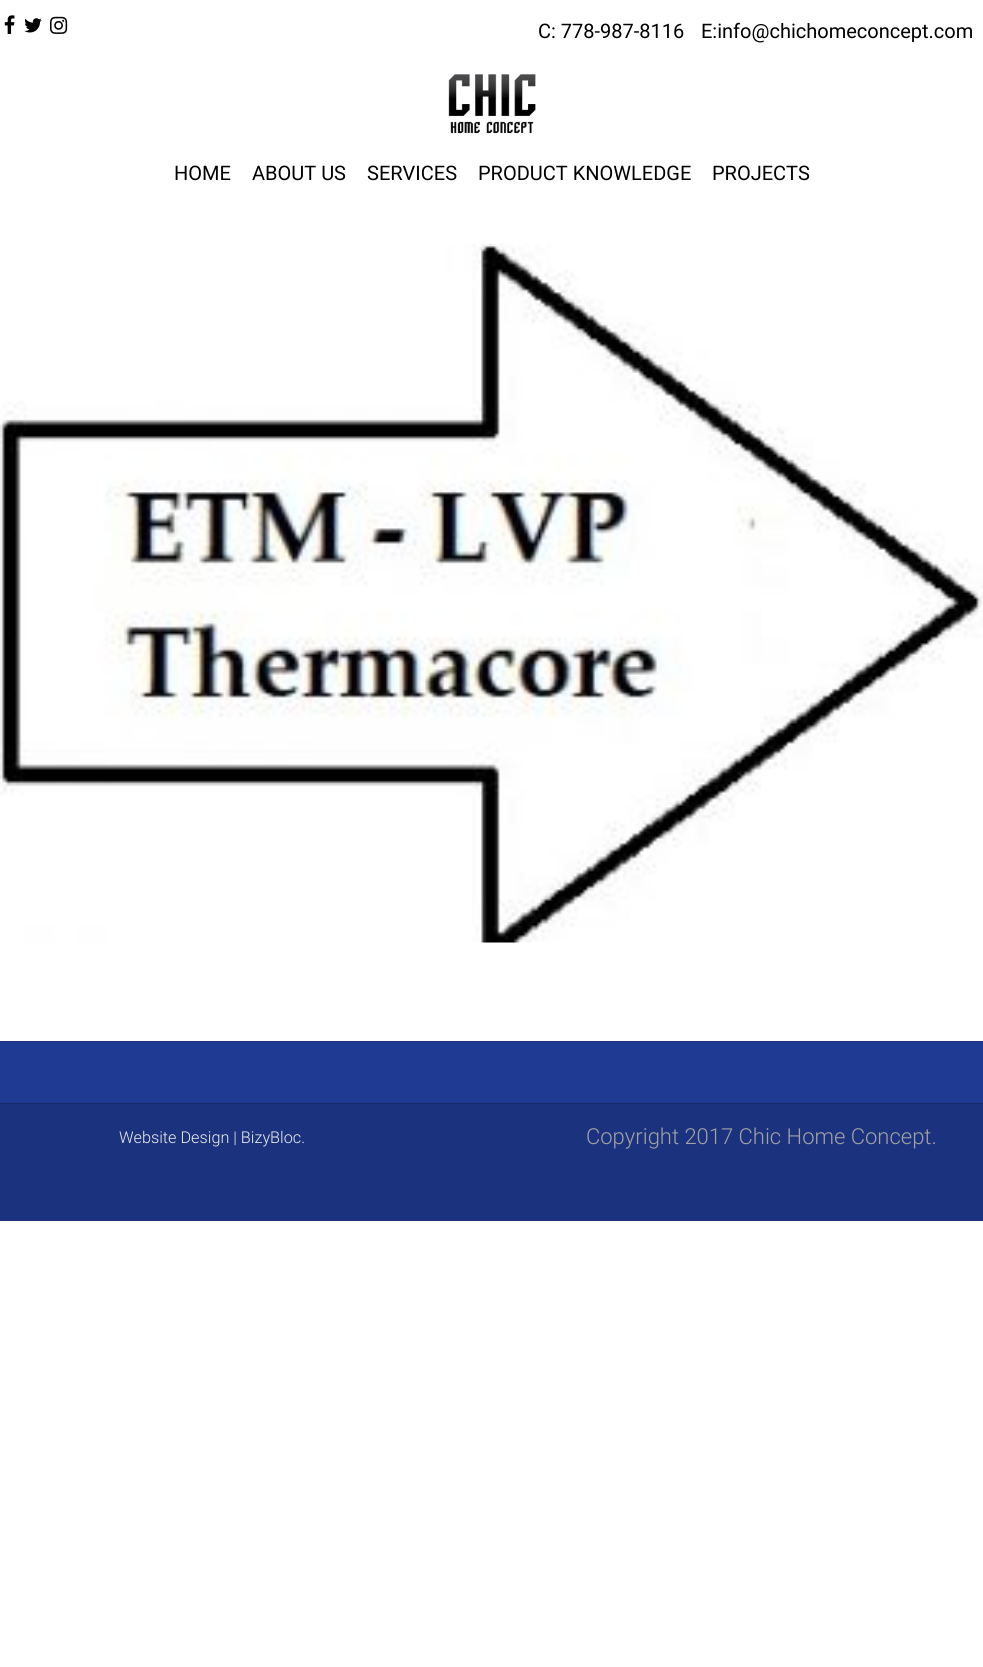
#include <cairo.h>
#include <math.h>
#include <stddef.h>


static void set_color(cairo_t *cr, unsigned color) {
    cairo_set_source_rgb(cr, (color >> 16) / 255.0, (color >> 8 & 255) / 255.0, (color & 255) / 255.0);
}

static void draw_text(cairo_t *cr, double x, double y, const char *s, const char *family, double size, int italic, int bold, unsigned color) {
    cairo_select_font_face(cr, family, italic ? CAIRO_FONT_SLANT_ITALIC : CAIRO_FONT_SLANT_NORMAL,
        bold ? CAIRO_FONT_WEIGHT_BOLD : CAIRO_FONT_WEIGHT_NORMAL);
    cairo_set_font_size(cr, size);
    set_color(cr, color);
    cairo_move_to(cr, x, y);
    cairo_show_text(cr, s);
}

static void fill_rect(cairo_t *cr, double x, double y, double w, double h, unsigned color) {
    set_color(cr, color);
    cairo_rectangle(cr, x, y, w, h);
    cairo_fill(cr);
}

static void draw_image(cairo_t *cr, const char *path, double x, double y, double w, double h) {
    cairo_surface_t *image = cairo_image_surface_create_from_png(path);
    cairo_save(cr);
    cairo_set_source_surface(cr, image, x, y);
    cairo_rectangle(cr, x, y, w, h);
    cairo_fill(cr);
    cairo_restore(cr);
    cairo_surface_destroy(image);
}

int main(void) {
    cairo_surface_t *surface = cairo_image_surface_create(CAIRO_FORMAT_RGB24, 983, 1667);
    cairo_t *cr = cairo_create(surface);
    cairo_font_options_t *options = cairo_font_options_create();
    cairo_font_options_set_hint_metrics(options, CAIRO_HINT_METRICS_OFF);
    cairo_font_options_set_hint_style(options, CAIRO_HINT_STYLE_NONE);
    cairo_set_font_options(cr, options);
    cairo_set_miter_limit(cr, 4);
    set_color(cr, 0xFFFFFF);
    cairo_paint(cr);
    draw_image(cr, "assets/img1.png", 4, 15, 11, 19);
    draw_image(cr, "assets/img2.png", 24, 18, 18, 15);
    draw_image(cr, "assets/img3.png", 50, 16, 18, 18);
    draw_text(cr, 538, 38, "C: 778-987-8116", "Roboto", 20, 0, 0, 0x000000);
    draw_text(cr, 701, 38, "E:info@chichomeconcept.com", "Roboto", 20, 0, 0, 0x000000);
    draw_image(cr, "assets/img4.png", 448, 74, 88, 60);
    draw_text(cr, 174, 180, "HOME", "Roboto", 20, 0, 0, 0x000000);
    draw_text(cr, 252, 180, "ABOUT US", "Roboto", 20, 0, 0, 0x000000);
    draw_text(cr, 367, 180, "SERVICES", "Roboto", 20, 0, 0, 0x000000);
    draw_text(cr, 478, 180, "PRODUCT KNOWLEDGE", "Roboto", 20, 0, 0, 0x000000);
    draw_text(cr, 712, 180, "PROJECTS", "Roboto", 20, 0, 0, 0x000000);
    draw_image(cr, "assets/img5.png", 0, 243, 983, 700);
    fill_rect(cr, 0, 1042, 983, 61, 0x1F3A93);
    fill_rect(cr, 0, 1041, 983, 1, 0x1B327E);
    fill_rect(cr, 0, 1104, 983, 117, 0x1B327E);
    fill_rect(cr, 0, 1103, 983, 1, 0x162969);
    draw_text(cr, 119, 1143, "Website Design | BizyBloc.", "Roboto Light", 16.25, 0, 0, 0xEEEEEE);
    draw_text(cr, 586, 1144, "Copyright 2017 Chic Home Concept.", "Roboto Light", 22, 0, 0, 0xA2A2A2);
    cairo_surface_write_to_png(surface, "output.png");
    cairo_font_options_destroy(options);
    cairo_destroy(cr);
    cairo_surface_destroy(surface);
    return 0;
}
